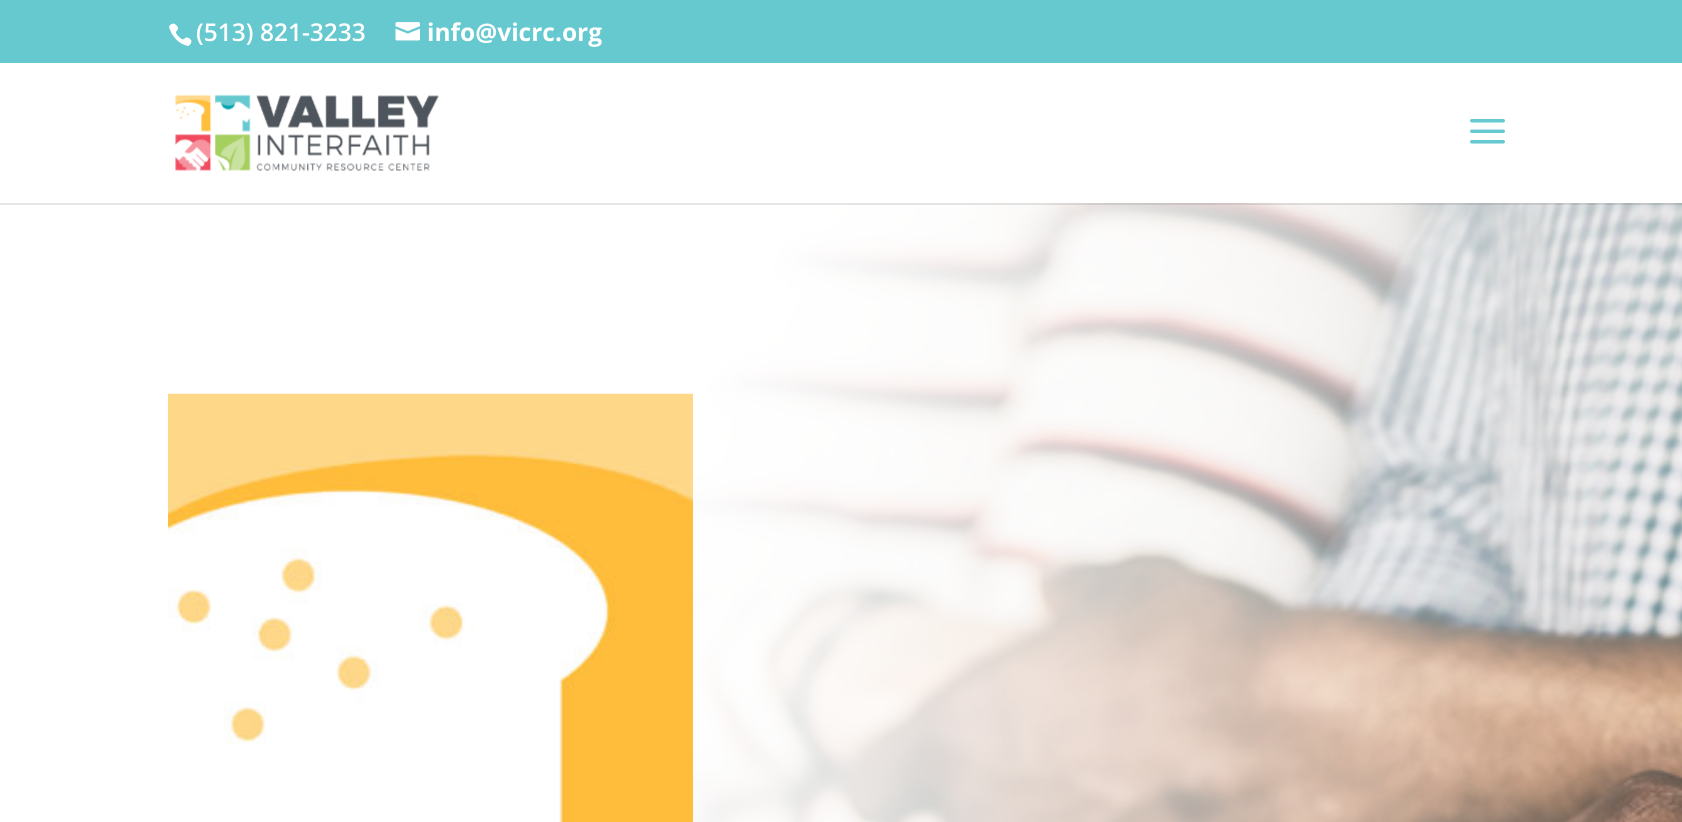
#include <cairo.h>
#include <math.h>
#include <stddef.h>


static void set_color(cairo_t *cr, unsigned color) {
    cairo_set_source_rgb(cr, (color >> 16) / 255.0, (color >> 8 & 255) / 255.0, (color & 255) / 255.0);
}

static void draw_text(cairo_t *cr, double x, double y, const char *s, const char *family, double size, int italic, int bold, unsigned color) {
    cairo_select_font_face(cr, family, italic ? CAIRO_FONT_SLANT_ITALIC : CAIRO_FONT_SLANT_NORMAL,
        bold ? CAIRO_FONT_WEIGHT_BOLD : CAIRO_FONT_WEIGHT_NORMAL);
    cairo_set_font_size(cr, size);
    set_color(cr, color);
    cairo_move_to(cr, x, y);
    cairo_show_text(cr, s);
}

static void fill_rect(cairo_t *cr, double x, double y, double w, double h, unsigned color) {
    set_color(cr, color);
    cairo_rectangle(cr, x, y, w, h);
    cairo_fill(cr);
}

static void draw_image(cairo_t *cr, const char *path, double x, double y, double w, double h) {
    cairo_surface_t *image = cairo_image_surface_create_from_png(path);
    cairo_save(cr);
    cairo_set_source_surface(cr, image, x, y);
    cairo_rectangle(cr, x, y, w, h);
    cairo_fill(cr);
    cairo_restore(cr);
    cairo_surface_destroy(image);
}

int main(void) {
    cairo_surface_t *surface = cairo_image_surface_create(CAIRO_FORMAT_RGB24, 1682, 822);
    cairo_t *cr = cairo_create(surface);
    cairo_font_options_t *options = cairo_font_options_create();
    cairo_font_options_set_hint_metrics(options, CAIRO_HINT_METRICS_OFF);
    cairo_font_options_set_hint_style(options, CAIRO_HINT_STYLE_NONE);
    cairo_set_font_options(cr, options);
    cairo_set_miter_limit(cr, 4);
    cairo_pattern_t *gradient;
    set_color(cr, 0xFFFFFF);
    cairo_paint(cr);
    fill_rect(cr, 0, 0, 1682, 63, 0x66C9CF);
    draw_image(cr, "assets/img1.png", 169, 23, 23, 23);
    draw_text(cr, 196, 41, "(513) 821-3233", "Open Sans SemiBold", 24.5, 0, 0, 0xFFFFFF);
    draw_image(cr, "assets/img2.png", 395, 22, 25, 19);
    draw_text(cr, 427, 41, "info@vicrc.org", "Open Sans", 24.5, 0, 1, 0xFFFFFF);
    draw_image(cr, "assets/img5.png", 693, 203, 989, 619);
    gradient = cairo_pattern_create_radial(1684, 823, 0, 1684, 823, 1794);
    cairo_pattern_add_color_stop_rgba(gradient, 0, 1, 1, 1, 0);
    cairo_pattern_add_color_stop_rgba(gradient, 0.6, 1, 1, 1, 1);
    cairo_set_source(cr, gradient);
    cairo_pattern_destroy(gradient);
    cairo_rectangle(cr, 693, 203, 989, 619);
    cairo_fill(cr);
    cairo_set_source_rgba(cr, 0, 0, 0, 0.1);
    cairo_new_path(cr);
    cairo_move_to(cr, 0, 203);
    cairo_line_to(cr, 0, 205);
    cairo_line_to(cr, 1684, 205);
    cairo_line_to(cr, 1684, 65);
    cairo_line_to(cr, 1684, 203);
    cairo_close_path(cr);
    cairo_fill(cr);
    draw_image(cr, "assets/img3.png", 175, 94, 264, 77);
    draw_image(cr, "assets/img4.png", 1470, 119, 35, 25);
    draw_image(cr, "assets/img6.png", 168, 393, 525, 429);
    cairo_surface_write_to_png(surface, "output.png");
    cairo_font_options_destroy(options);
    cairo_destroy(cr);
    cairo_surface_destroy(surface);
    return 0;
}
